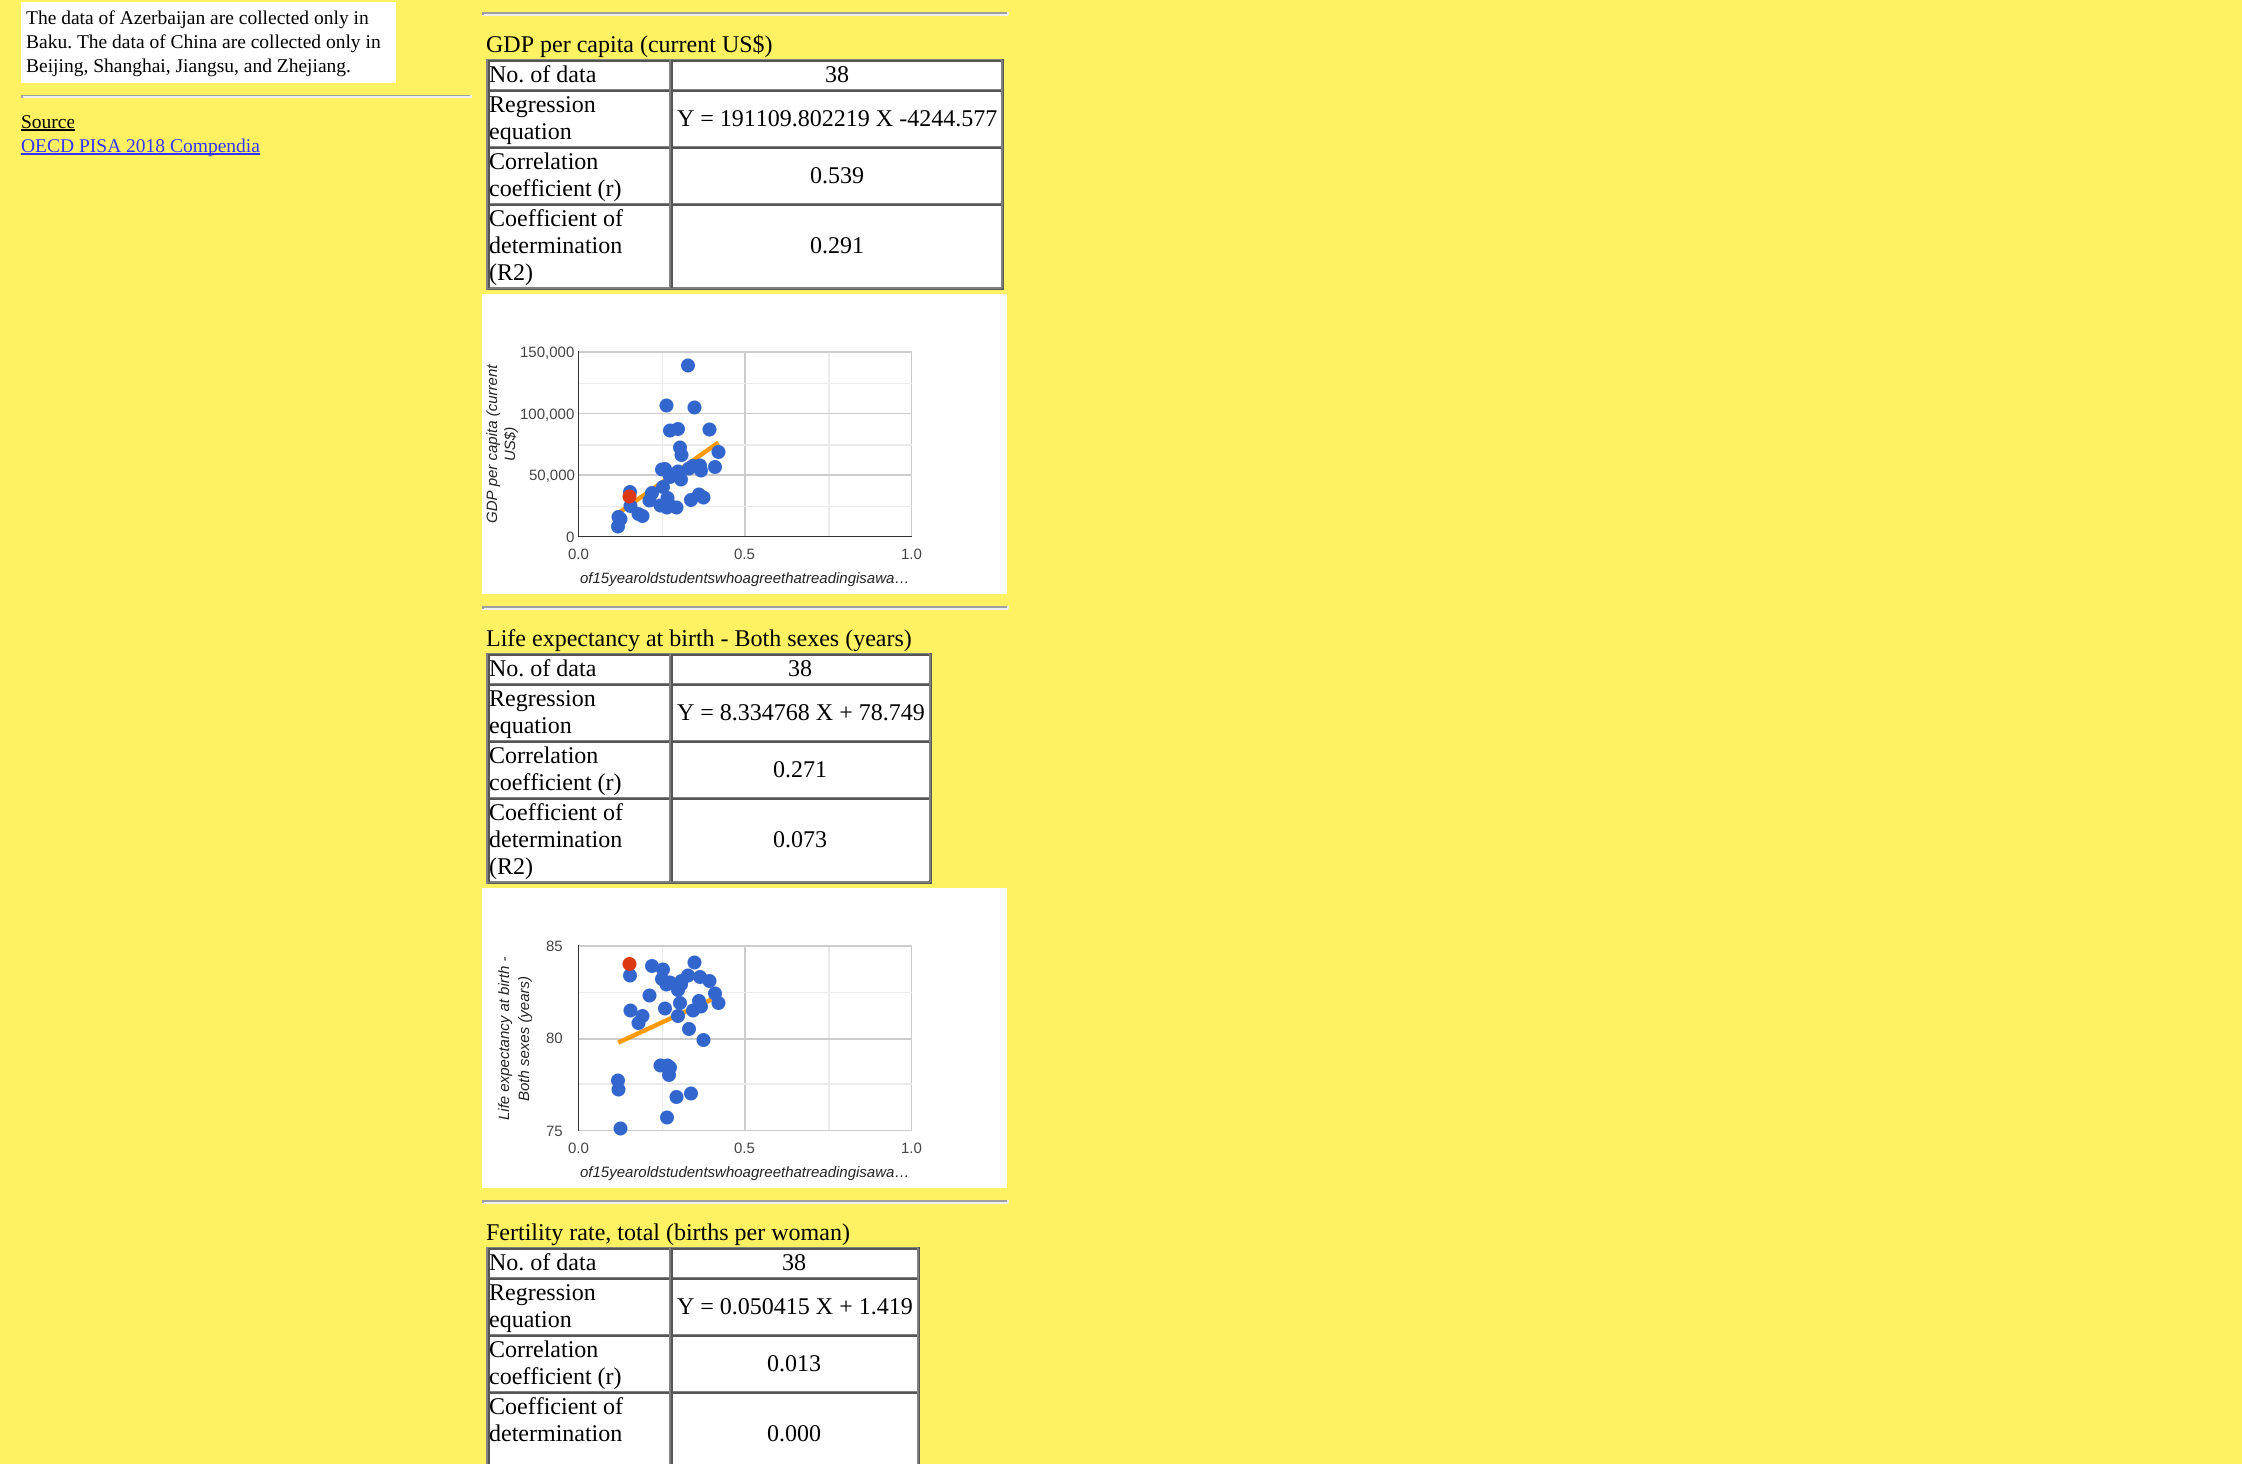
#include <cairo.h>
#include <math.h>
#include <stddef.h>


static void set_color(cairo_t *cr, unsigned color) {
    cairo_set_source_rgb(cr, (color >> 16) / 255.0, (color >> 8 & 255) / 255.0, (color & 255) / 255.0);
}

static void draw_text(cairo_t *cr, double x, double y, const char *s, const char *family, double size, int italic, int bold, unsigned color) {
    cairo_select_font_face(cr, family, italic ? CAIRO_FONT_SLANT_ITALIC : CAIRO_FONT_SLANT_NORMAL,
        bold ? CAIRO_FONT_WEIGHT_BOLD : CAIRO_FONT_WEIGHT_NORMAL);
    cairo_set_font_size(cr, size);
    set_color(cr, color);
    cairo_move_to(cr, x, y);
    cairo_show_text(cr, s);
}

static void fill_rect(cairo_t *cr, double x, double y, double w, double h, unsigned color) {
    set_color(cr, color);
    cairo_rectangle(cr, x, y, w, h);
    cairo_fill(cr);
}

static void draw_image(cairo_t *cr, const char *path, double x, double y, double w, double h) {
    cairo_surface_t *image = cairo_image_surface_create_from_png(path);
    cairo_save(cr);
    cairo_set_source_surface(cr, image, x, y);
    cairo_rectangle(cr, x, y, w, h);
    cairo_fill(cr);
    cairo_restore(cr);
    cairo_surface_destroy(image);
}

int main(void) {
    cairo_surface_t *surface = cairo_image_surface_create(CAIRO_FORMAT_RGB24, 2242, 1464);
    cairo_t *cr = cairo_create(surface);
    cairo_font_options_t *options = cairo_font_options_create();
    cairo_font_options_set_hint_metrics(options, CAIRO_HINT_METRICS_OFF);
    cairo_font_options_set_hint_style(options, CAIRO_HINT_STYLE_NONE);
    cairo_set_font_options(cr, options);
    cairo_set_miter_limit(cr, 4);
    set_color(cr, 0xFEF263);
    cairo_paint(cr);
    fill_rect(cr, 21, 2, 375, 81, 0xFFFFFF);
    draw_text(cr, 26, 24, "The data of Azerbaijan are collected only in", "Liberation Serif", 19.5, 0, 0, 0x000000);
    draw_text(cr, 26, 48, "Baku. The data of China are collected only in", "Liberation Serif", 19.5, 0, 0, 0x000000);
    draw_text(cr, 26, 72, "Beijing, Shanghai, Jiangsu, and Zhejiang.", "Liberation Serif", 19.5, 0, 0, 0x000000);
    fill_rect(cr, 21, 95, 450, 1, 0x9F9F9F);
    fill_rect(cr, 470, 95, 2, 3, 0xEEEEEE);
    fill_rect(cr, 21, 96, 450, 2, 0xEEEEEE);
    fill_rect(cr, 21, 95, 2, 3, 0x9F9F9F);
    draw_text(cr, 21, 128, "Source", "Liberation Serif", 19.5, 0, 0, 0x000000);
    fill_rect(cr, 21, 129, 54, 2, 0x000000);
    fill_rect(cr, 21, 153, 239, 2, 0x3333FF);
    draw_text(cr, 21, 152, "OECD PISA 2018 Compendia", "Liberation Serif", 19.5, 0, 0, 0x3333FF);
    fill_rect(cr, 482, 12, 526, 2, 0x9F9F9F);
    fill_rect(cr, 1007, 12, 2, 3, 0xEEEEEE);
    fill_rect(cr, 482, 14, 526, 2, 0xEEEEEE);
    fill_rect(cr, 482, 12, 2, 3, 0x9F9F9F);
    draw_text(cr, 486, 52, "GDP per capita (current US$)", "Liberation Serif", 24, 0, 0, 0x000000);
    fill_rect(cr, 490, 62, 511, 225, 0xFFFFFF);
    fill_rect(cr, 486, 59, 518, 1, 0x808080);
    fill_rect(cr, 1002, 59, 2, 231, 0x555555);
    fill_rect(cr, 486, 288, 518, 2, 0x555555);
    fill_rect(cr, 486, 59, 2, 231, 0x808080);
    fill_rect(cr, 488, 60, 514, 2, 0x555555);
    fill_rect(cr, 669, 60, 2, 30, 0x808080);
    fill_rect(cr, 488, 89, 183, 1, 0x808080);
    fill_rect(cr, 488, 60, 2, 30, 0x555555);
    draw_text(cr, 489, 82, "No. of data", "Liberation Serif", 24, 0, 0, 0x000000);
    fill_rect(cr, 1001, 60, 2, 30, 0x808080);
    fill_rect(cr, 671, 89, 331, 1, 0x808080);
    fill_rect(cr, 671, 60, 2, 30, 0x555555);
    draw_text(cr, 825, 82, "38", "Liberation Serif", 24, 0, 0, 0x000000);
    fill_rect(cr, 488, 90, 514, 2, 0x555555);
    fill_rect(cr, 669, 90, 2, 57, 0x808080);
    fill_rect(cr, 488, 146, 183, 1, 0x808080);
    fill_rect(cr, 488, 90, 2, 57, 0x555555);
    draw_text(cr, 489, 112, "Regression", "Liberation Serif", 24, 0, 0, 0x000000);
    draw_text(cr, 489, 139, "equation", "Liberation Serif", 24, 0, 0, 0x000000);
    fill_rect(cr, 1001, 90, 2, 57, 0x808080);
    fill_rect(cr, 671, 146, 331, 1, 0x808080);
    fill_rect(cr, 671, 90, 2, 57, 0x555555);
    draw_text(cr, 677, 126, "Y = 191109.802219 X -4244.577", "Liberation Serif", 24, 0, 0, 0x000000);
    fill_rect(cr, 488, 147, 514, 2, 0x555555);
    fill_rect(cr, 669, 147, 2, 57, 0x808080);
    fill_rect(cr, 488, 203, 183, 1, 0x808080);
    fill_rect(cr, 488, 147, 2, 57, 0x555555);
    draw_text(cr, 489, 169, "Correlation", "Liberation Serif", 24, 0, 0, 0x000000);
    draw_text(cr, 489, 196, "coefficient (r)", "Liberation Serif", 24, 0, 0, 0x000000);
    fill_rect(cr, 1001, 147, 2, 57, 0x808080);
    fill_rect(cr, 671, 203, 331, 1, 0x808080);
    fill_rect(cr, 671, 147, 2, 57, 0x555555);
    draw_text(cr, 810, 183, "0.539", "Liberation Serif", 24, 0, 0, 0x000000);
    fill_rect(cr, 488, 204, 514, 2, 0x555555);
    fill_rect(cr, 669, 204, 2, 84, 0x808080);
    fill_rect(cr, 488, 287, 183, 2, 0x808080);
    fill_rect(cr, 488, 204, 2, 84, 0x555555);
    draw_text(cr, 489, 226, "Coefficient of", "Liberation Serif", 24, 0, 0, 0x000000);
    draw_text(cr, 489, 253, "determination", "Liberation Serif", 24, 0, 0, 0x000000);
    draw_text(cr, 489, 280, "(R2)", "Liberation Serif", 24, 0, 0, 0x000000);
    fill_rect(cr, 1001, 204, 2, 84, 0x808080);
    fill_rect(cr, 671, 287, 331, 2, 0x808080);
    fill_rect(cr, 671, 204, 2, 84, 0x555555);
    draw_text(cr, 810, 253, "0.291", "Liberation Serif", 24, 0, 0, 0x000000);
    draw_image(cr, "assets/img1.png", 482, 294, 525, 300);
    draw_text(cr, 520, 357, "150,000", "Liberation Sans", 15, 0, 0, 0x444444);
    cairo_save(cr);
    cairo_translate(cr, 497, 523);
    cairo_rotate(cr, -90 * M_PI / 180);
    draw_text(cr, 0, 0, "GDP per capita (current", "Liberation Sans", 15, 1, 0, 0x222222);
    cairo_restore(cr);
    draw_text(cr, 520, 419, "100,000", "Liberation Sans", 15, 0, 0, 0x444444);
    cairo_save(cr);
    cairo_translate(cr, 515, 461);
    cairo_rotate(cr, -90 * M_PI / 180);
    draw_text(cr, 0, 0, "US$)", "Liberation Sans", 15, 1, 0, 0x222222);
    cairo_restore(cr);
    draw_text(cr, 529, 480, "50,000", "Liberation Sans", 15, 0, 0, 0x444444);
    draw_text(cr, 566, 542, "0", "Liberation Sans", 15, 0, 0, 0x444444);
    draw_text(cr, 568, 559, "0.0", "Liberation Sans", 15, 0, 0, 0x444444);
    draw_text(cr, 734, 559, "0.5", "Liberation Sans", 15, 0, 0, 0x444444);
    draw_text(cr, 901, 559, "1.0", "Liberation Sans", 15, 0, 0, 0x444444);
    draw_text(cr, 580, 583, "of15yearoldstudentswhoagreethatreadingisawa…", "Liberation Sans", 15, 1, 0, 0x222222);
    fill_rect(cr, 482, 606, 526, 2, 0x9F9F9F);
    fill_rect(cr, 1007, 606, 2, 3, 0xEEEEEE);
    fill_rect(cr, 482, 608, 526, 2, 0xEEEEEE);
    fill_rect(cr, 482, 606, 2, 3, 0x9F9F9F);
    draw_text(cr, 486, 646, "Life expectancy at birth - Both sexes (years)", "Liberation Serif", 24, 0, 0, 0x000000);
    fill_rect(cr, 490, 656, 439, 225, 0xFFFFFF);
    fill_rect(cr, 486, 653, 446, 1, 0x808080);
    fill_rect(cr, 930, 653, 2, 231, 0x555555);
    fill_rect(cr, 486, 882, 446, 2, 0x555555);
    fill_rect(cr, 486, 653, 2, 231, 0x808080);
    fill_rect(cr, 488, 654, 442, 2, 0x555555);
    fill_rect(cr, 669, 654, 2, 30, 0x808080);
    fill_rect(cr, 488, 683, 183, 1, 0x808080);
    fill_rect(cr, 488, 654, 2, 30, 0x555555);
    draw_text(cr, 489, 676, "No. of data", "Liberation Serif", 24, 0, 0, 0x000000);
    fill_rect(cr, 929, 654, 2, 30, 0x808080);
    fill_rect(cr, 671, 683, 259, 1, 0x808080);
    fill_rect(cr, 671, 654, 2, 30, 0x555555);
    draw_text(cr, 788, 676, "38", "Liberation Serif", 24, 0, 0, 0x000000);
    fill_rect(cr, 488, 684, 442, 2, 0x555555);
    fill_rect(cr, 669, 684, 2, 57, 0x808080);
    fill_rect(cr, 488, 740, 183, 1, 0x808080);
    fill_rect(cr, 488, 684, 2, 57, 0x555555);
    draw_text(cr, 489, 706, "Regression", "Liberation Serif", 24, 0, 0, 0x000000);
    draw_text(cr, 489, 733, "equation", "Liberation Serif", 24, 0, 0, 0x000000);
    fill_rect(cr, 929, 684, 2, 57, 0x808080);
    fill_rect(cr, 671, 740, 259, 1, 0x808080);
    fill_rect(cr, 671, 684, 2, 57, 0x555555);
    draw_text(cr, 677, 720, "Y = 8.334768 X + 78.749", "Liberation Serif", 24, 0, 0, 0x000000);
    fill_rect(cr, 488, 741, 442, 2, 0x555555);
    fill_rect(cr, 669, 741, 2, 57, 0x808080);
    fill_rect(cr, 488, 797, 183, 1, 0x808080);
    fill_rect(cr, 488, 741, 2, 57, 0x555555);
    draw_text(cr, 489, 763, "Correlation", "Liberation Serif", 24, 0, 0, 0x000000);
    draw_text(cr, 489, 790, "coefficient (r)", "Liberation Serif", 24, 0, 0, 0x000000);
    fill_rect(cr, 929, 741, 2, 57, 0x808080);
    fill_rect(cr, 671, 797, 259, 1, 0x808080);
    fill_rect(cr, 671, 741, 2, 57, 0x555555);
    draw_text(cr, 773, 777, "0.271", "Liberation Serif", 24, 0, 0, 0x000000);
    fill_rect(cr, 488, 798, 442, 2, 0x555555);
    fill_rect(cr, 669, 798, 2, 84, 0x808080);
    fill_rect(cr, 488, 881, 183, 2, 0x808080);
    fill_rect(cr, 488, 798, 2, 84, 0x555555);
    draw_text(cr, 489, 820, "Coefficient of", "Liberation Serif", 24, 0, 0, 0x000000);
    draw_text(cr, 489, 847, "determination", "Liberation Serif", 24, 0, 0, 0x000000);
    draw_text(cr, 489, 874, "(R2)", "Liberation Serif", 24, 0, 0, 0x000000);
    fill_rect(cr, 929, 798, 2, 84, 0x808080);
    fill_rect(cr, 671, 881, 259, 2, 0x808080);
    fill_rect(cr, 671, 798, 2, 84, 0x555555);
    draw_text(cr, 773, 847, "0.073", "Liberation Serif", 24, 0, 0, 0x000000);
    draw_image(cr, "assets/img2.png", 482, 888, 525, 300);
    draw_text(cr, 546, 951, "85", "Liberation Sans", 15, 0, 0, 0x444444);
    cairo_save(cr);
    cairo_translate(cr, 509, 1120);
    cairo_rotate(cr, -90 * M_PI / 180);
    draw_text(cr, 0, 0, "Life expectancy at birth -", "Liberation Sans", 15, 1, 0, 0x222222);
    cairo_restore(cr);
    cairo_save(cr);
    cairo_translate(cr, 529, 1101);
    cairo_rotate(cr, -90 * M_PI / 180);
    draw_text(cr, 0, 0, "Both sexes (years)", "Liberation Sans", 15, 1, 0, 0x222222);
    cairo_restore(cr);
    draw_text(cr, 546, 1043, "80", "Liberation Sans", 15, 0, 0, 0x444444);
    draw_text(cr, 546, 1136, "75", "Liberation Sans", 15, 0, 0, 0x444444);
    draw_text(cr, 568, 1153, "0.0", "Liberation Sans", 15, 0, 0, 0x444444);
    draw_text(cr, 734, 1153, "0.5", "Liberation Sans", 15, 0, 0, 0x444444);
    draw_text(cr, 901, 1153, "1.0", "Liberation Sans", 15, 0, 0, 0x444444);
    draw_text(cr, 580, 1177, "of15yearoldstudentswhoagreethatreadingisawa…", "Liberation Sans", 15, 1, 0, 0x222222);
    fill_rect(cr, 482, 1200, 526, 2, 0x9F9F9F);
    fill_rect(cr, 1007, 1200, 2, 3, 0xEEEEEE);
    fill_rect(cr, 482, 1202, 526, 2, 0xEEEEEE);
    fill_rect(cr, 482, 1200, 2, 3, 0x9F9F9F);
    draw_text(cr, 486, 1240, "Fertility rate, total (births per woman)", "Liberation Serif", 24, 0, 0, 0x000000);
    fill_rect(cr, 490, 1250, 427, 214, 0xFFFFFF);
    fill_rect(cr, 486, 1247, 434, 1, 0x808080);
    fill_rect(cr, 918, 1247, 2, 217, 0x555555);
    fill_rect(cr, 486, 1247, 2, 217, 0x808080);
    fill_rect(cr, 488, 1248, 430, 2, 0x555555);
    fill_rect(cr, 669, 1248, 2, 30, 0x808080);
    fill_rect(cr, 488, 1277, 183, 1, 0x808080);
    fill_rect(cr, 488, 1248, 2, 30, 0x555555);
    draw_text(cr, 489, 1270, "No. of data", "Liberation Serif", 24, 0, 0, 0x000000);
    fill_rect(cr, 917, 1248, 2, 30, 0x808080);
    fill_rect(cr, 671, 1277, 247, 1, 0x808080);
    fill_rect(cr, 671, 1248, 2, 30, 0x555555);
    draw_text(cr, 782, 1270, "38", "Liberation Serif", 24, 0, 0, 0x000000);
    fill_rect(cr, 488, 1278, 430, 2, 0x555555);
    fill_rect(cr, 669, 1278, 2, 57, 0x808080);
    fill_rect(cr, 488, 1334, 183, 1, 0x808080);
    fill_rect(cr, 488, 1278, 2, 57, 0x555555);
    draw_text(cr, 489, 1300, "Regression", "Liberation Serif", 24, 0, 0, 0x000000);
    draw_text(cr, 489, 1327, "equation", "Liberation Serif", 24, 0, 0, 0x000000);
    fill_rect(cr, 917, 1278, 2, 57, 0x808080);
    fill_rect(cr, 671, 1334, 247, 1, 0x808080);
    fill_rect(cr, 671, 1278, 2, 57, 0x555555);
    draw_text(cr, 677, 1314, "Y = 0.050415 X + 1.419", "Liberation Serif", 24, 0, 0, 0x000000);
    fill_rect(cr, 488, 1335, 430, 2, 0x555555);
    fill_rect(cr, 669, 1335, 2, 57, 0x808080);
    fill_rect(cr, 488, 1391, 183, 1, 0x808080);
    fill_rect(cr, 488, 1335, 2, 57, 0x555555);
    draw_text(cr, 489, 1357, "Correlation", "Liberation Serif", 24, 0, 0, 0x000000);
    draw_text(cr, 489, 1384, "coefficient (r)", "Liberation Serif", 24, 0, 0, 0x000000);
    fill_rect(cr, 917, 1335, 2, 57, 0x808080);
    fill_rect(cr, 671, 1391, 247, 1, 0x808080);
    fill_rect(cr, 671, 1335, 2, 57, 0x555555);
    draw_text(cr, 767, 1371, "0.013", "Liberation Serif", 24, 0, 0, 0x000000);
    fill_rect(cr, 488, 1392, 430, 2, 0x555555);
    fill_rect(cr, 669, 1392, 2, 72, 0x808080);
    fill_rect(cr, 488, 1392, 2, 72, 0x555555);
    draw_text(cr, 489, 1414, "Coefficient of", "Liberation Serif", 24, 0, 0, 0x000000);
    draw_text(cr, 489, 1441, "determination", "Liberation Serif", 24, 0, 0, 0x000000);
    fill_rect(cr, 917, 1392, 2, 72, 0x808080);
    fill_rect(cr, 671, 1392, 2, 72, 0x555555);
    draw_text(cr, 767, 1441, "0.000", "Liberation Serif", 24, 0, 0, 0x000000);
    cairo_surface_write_to_png(surface, "output.png");
    cairo_font_options_destroy(options);
    cairo_destroy(cr);
    cairo_surface_destroy(surface);
    return 0;
}
